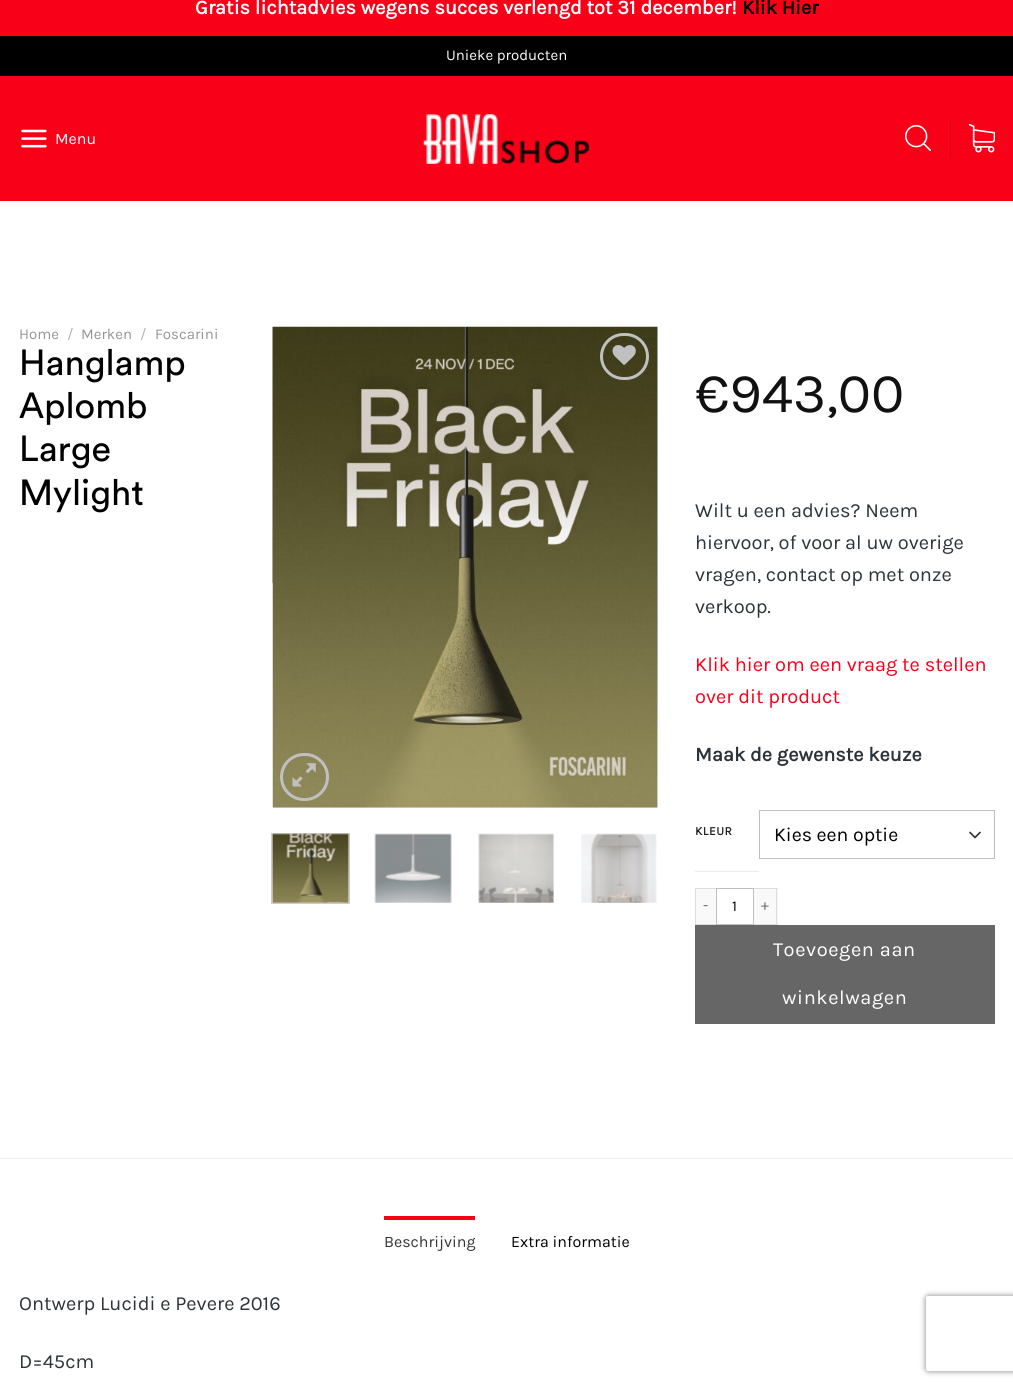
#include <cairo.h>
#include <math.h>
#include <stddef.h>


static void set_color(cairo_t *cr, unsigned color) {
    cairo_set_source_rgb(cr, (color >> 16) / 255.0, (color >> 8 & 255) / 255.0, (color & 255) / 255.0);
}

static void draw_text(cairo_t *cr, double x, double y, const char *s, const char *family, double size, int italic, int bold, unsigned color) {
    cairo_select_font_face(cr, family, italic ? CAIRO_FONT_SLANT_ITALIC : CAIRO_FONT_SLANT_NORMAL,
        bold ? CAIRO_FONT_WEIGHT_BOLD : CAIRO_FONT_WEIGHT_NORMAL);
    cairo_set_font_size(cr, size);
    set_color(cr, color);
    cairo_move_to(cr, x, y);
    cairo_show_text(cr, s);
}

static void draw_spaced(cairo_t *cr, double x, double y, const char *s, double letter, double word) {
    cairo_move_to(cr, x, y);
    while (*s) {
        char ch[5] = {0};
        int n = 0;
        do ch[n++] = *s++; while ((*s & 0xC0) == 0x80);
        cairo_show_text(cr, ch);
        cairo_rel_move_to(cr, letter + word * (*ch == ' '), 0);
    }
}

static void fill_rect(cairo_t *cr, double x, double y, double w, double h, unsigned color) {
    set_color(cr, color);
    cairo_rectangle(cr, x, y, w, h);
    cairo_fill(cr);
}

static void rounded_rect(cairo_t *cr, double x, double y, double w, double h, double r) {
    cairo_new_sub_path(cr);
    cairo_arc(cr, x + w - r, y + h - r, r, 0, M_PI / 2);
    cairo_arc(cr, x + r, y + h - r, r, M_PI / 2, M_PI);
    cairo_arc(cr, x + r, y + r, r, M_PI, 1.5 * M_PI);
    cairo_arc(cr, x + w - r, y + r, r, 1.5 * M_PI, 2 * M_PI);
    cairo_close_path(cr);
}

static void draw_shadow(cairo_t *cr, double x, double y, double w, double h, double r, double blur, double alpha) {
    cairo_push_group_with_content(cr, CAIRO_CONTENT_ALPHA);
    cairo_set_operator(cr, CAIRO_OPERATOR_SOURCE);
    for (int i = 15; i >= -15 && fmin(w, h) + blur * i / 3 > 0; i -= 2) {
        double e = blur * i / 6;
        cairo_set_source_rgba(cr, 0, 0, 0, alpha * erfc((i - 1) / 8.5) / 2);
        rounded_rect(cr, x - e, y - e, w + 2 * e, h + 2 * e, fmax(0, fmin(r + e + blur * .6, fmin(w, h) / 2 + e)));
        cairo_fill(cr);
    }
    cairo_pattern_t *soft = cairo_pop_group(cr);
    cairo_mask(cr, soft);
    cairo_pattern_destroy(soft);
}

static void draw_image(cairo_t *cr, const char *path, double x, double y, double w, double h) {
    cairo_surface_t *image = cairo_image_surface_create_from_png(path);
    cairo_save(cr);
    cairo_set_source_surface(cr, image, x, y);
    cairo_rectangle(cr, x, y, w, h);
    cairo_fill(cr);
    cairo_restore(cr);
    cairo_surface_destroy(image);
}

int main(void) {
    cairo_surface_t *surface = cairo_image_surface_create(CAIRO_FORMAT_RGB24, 1013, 1388);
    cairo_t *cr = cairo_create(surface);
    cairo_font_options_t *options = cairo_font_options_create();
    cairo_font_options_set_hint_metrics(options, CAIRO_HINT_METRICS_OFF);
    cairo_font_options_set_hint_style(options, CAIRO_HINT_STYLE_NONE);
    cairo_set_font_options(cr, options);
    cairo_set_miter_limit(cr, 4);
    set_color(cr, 0xF80017);
    cairo_paint(cr);
    draw_text(cr, 195, 14, "Gratis lichtadvies wegens succes verlengd tot 31 december!", "Karla", 20, 0, 1, 0xFFFFFF);
    draw_text(cr, 742, 14, "Klik Hier", "Karla", 20, 0, 1, 0x000000);
    fill_rect(cr, 0, 201, 1013, 1187, 0xFFFFFF);
    fill_rect(cr, 0, 36, 1013, 40, 0x000000);
    draw_text(cr, 446, 60, "Unieke producten", "Karla", 15, 0, 0, 0xFFFFFF);
    draw_image(cr, "assets/img1.png", 21, 129, 26, 19);
    draw_text(cr, 55, 144, "Menu", "Karla", 16, 0, 0, 0xFFFFFF);
    draw_image(cr, "assets/img2.png", 423, 114, 167, 50);
    draw_image(cr, "assets/img3.png", 905, 125, 26, 26);
    fill_rect(cr, 950, 120, 1, 38, 0xDF0015);
    draw_image(cr, "assets/img4.png", 969, 124, 26, 29);
    draw_text(cr, 19, 339, "Home", "Karla", 15, 0, 0, 0x949494);
    draw_text(cr, 67, 339, "/", "Karla", 15, 0, 0, 0xB2B2B2);
    draw_text(cr, 81, 339, "Merken", "Karla", 15, 0, 0, 0x949494);
    draw_text(cr, 140, 339, "/", "Karla", 15, 0, 0, 0xB2B2B2);
    draw_text(cr, 155, 339, "Foscarini", "Karla", 15, 0, 0, 0x949494);
    draw_text(cr, 19, 375, "Hanglamp", "Circular", 36, 0, 0, 0x000000);
    draw_text(cr, 19, 418, "Aplomb", "Circular", 36, 0, 0, 0x000000);
    draw_text(cr, 19, 461, "Large", "Circular", 36, 0, 0, 0x000000);
    draw_text(cr, 19, 505, "Mylight", "Circular", 36, 0, 0, 0x000000);
    draw_image(cr, "assets/img5.png", 272, 326, 386, 482);
    draw_image(cr, "assets/img6.png", 272, 326, 1, 257);
    draw_image(cr, "assets/img7.png", 657, 326, 1, 482);
    rounded_rect(cr, 601.5, 334.5, 46, 44, 22);
    set_color(cr, 0xC0C0C0);
    cairo_set_line_width(cr, 3);
    cairo_stroke(cr);
    draw_image(cr, "assets/img8.png", 612, 345, 24, 20);
    rounded_rect(cr, 281.5, 754.5, 46, 45, 22.5);
    cairo_stroke(cr);
    draw_image(cr, "assets/img9.png", 292, 763, 24, 24);
    cairo_rectangle(cr, 271.5, 833.5, 78, 70);
    set_color(cr, 0xCCCCCC);
    cairo_set_line_width(cr, 1);
    cairo_stroke(cr);
    draw_image(cr, "assets/img10.png", 272, 833, 78, 70);
    draw_image(cr, "assets/img11.png", 374, 833, 78, 70);
    draw_image(cr, "assets/img12.png", 478, 833, 76, 70);
    draw_image(cr, "assets/img13.png", 581, 833, 76, 70);
    draw_text(cr, 695, 412, "€943,00", "Karla", 56, 0, 0, 0x111111);
    draw_text(cr, 695, 517, "Wilt u een advies? Neem", "Karla", 20, 0, 0, 0x2D3338);
    draw_text(cr, 695, 549, "hiervoor, of voor al uw overige", "Karla", 20, 0, 0, 0x2D3338);
    draw_text(cr, 695, 581, "vragen, contact op met onze", "Karla", 20, 0, 0, 0x2D3338);
    draw_text(cr, 695, 613, "verkoop.", "Karla", 20, 0, 0, 0x2D3338);
    draw_text(cr, 695, 671, "Klik hier om een vraag te stellen", "Karla", 20, 0, 0, 0xF80017);
    draw_text(cr, 695, 703, "over dit product", "Karla", 20, 0, 0, 0xF80017);
    draw_text(cr, 695, 761, "Maak de gewenste keuze", "Karla", 20, 0, 1, 0x2D3338);
    fill_rect(cr, 695, 871, 64, 1, 0xECECEC);
    cairo_set_font_size(cr, 12);
    set_color(cr, 0x222222);
    draw_spaced(cr, 695, 835, "KLEUR", 0.5, 0);
    cairo_new_path(cr);
    cairo_move_to(cr, 970, 832.5);
    cairo_line_to(cr, 975, 837.5);
    cairo_line_to(cr, 980, 832.5);
    set_color(cr, 0x333333);
    cairo_set_line_width(cr, 1.7);
    cairo_set_line_cap(cr, CAIRO_LINE_CAP_ROUND);
    cairo_set_line_join(cr, CAIRO_LINE_JOIN_ROUND);
    cairo_stroke(cr);
    cairo_rectangle(cr, 759.5, 810.5, 235, 48);
    set_color(cr, 0xBFBFBF);
    cairo_set_line_width(cr, 1);
    cairo_set_line_cap(cr, CAIRO_LINE_CAP_BUTT);
    cairo_set_line_join(cr, CAIRO_LINE_JOIN_MITER);
    cairo_stroke(cr);
    draw_text(cr, 774, 841, "Kies een optie", "Karla", 19.5, 0, 0, 0x000000);
    fill_rect(cr, 696, 889, 20, 35, 0xF9F9F9);
    fill_rect(cr, 695, 888, 21, 1, 0xDDDDDD);
    fill_rect(cr, 695, 924, 21, 1, 0xDDDDDD);
    fill_rect(cr, 695, 888, 1, 37, 0xDDDDDD);
    draw_text(cr, 703, 910, "-", "Karla", 15, 0, 0, 0x666666);
    cairo_rectangle(cr, 716.5, 888.5, 37, 36);
    set_color(cr, 0xBFBFBF);
    cairo_stroke(cr);
    draw_text(cr, 732, 911, "1", "Karla", 15, 0, 0, 0x000000);
    fill_rect(cr, 754, 889, 24, 35, 0xF9F9F9);
    fill_rect(cr, 754, 888, 24, 1, 0xDDDDDD);
    fill_rect(cr, 776, 888, 1, 37, 0xDDDDDD);
    fill_rect(cr, 754, 924, 24, 1, 0xDDDDDD);
    draw_text(cr, 761, 910, "+", "Karla", 15, 0, 0, 0x666666);
    fill_rect(cr, 695, 925, 300, 99, 0x666666);
    cairo_set_font_size(cr, 20);
    set_color(cr, 0xFFFFFF);
    draw_spaced(cr, 773, 956, "Toevoegen aan", 0.6, 0);
    draw_spaced(cr, 782, 1004, "winkelwagen", 0.6, 0);
    fill_rect(cr, 0, 1158, 1013, 1, 0xF1F1F1);
    fill_rect(cr, 384, 1216, 91, 4, 0xF80017);
    draw_text(cr, 384, 1247, "Beschrijving", "Karla", 16, 0, 0, 0x353535);
    draw_text(cr, 511, 1247, "Extra informatie", "Karla", 16, 0, 0, 0x000000);
    draw_text(cr, 19, 1310, "Ontwerp Lucidi e Pevere 2016", "Karla", 20, 0, 0, 0x2D3338);
    draw_text(cr, 19, 1368, "D=45cm", "Karla", 20, 0, 0, 0x2D3338);
    cairo_save(cr);
    cairo_set_fill_rule(cr, CAIRO_FILL_RULE_EVEN_ODD);
    cairo_new_path(cr);
    cairo_move_to(cr, 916, 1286);
    cairo_line_to(cr, 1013, 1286);
    cairo_line_to(cr, 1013, 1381);
    cairo_line_to(cr, 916, 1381);
    cairo_close_path(cr);
    cairo_move_to(cr, 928.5, 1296);
    cairo_line_to(cr, 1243.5, 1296);
    cairo_curve_to(cr, 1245, 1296, 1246, 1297, 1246, 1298.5);
    cairo_line_to(cr, 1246, 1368.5);
    cairo_curve_to(cr, 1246, 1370, 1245, 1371, 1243.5, 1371);
    cairo_line_to(cr, 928.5, 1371);
    cairo_curve_to(cr, 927, 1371, 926, 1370, 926, 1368.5);
    cairo_line_to(cr, 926, 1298.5);
    cairo_curve_to(cr, 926, 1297, 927, 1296, 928.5, 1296);
    cairo_close_path(cr);
    cairo_clip(cr);
    set_color(cr, 0x808080);
    draw_shadow(cr, 926, 1296, 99, 75, 2.5, 3, 1);
    cairo_restore(cr);
    cairo_surface_write_to_png(surface, "output.png");
    cairo_font_options_destroy(options);
    cairo_destroy(cr);
    cairo_surface_destroy(surface);
    return 0;
}
